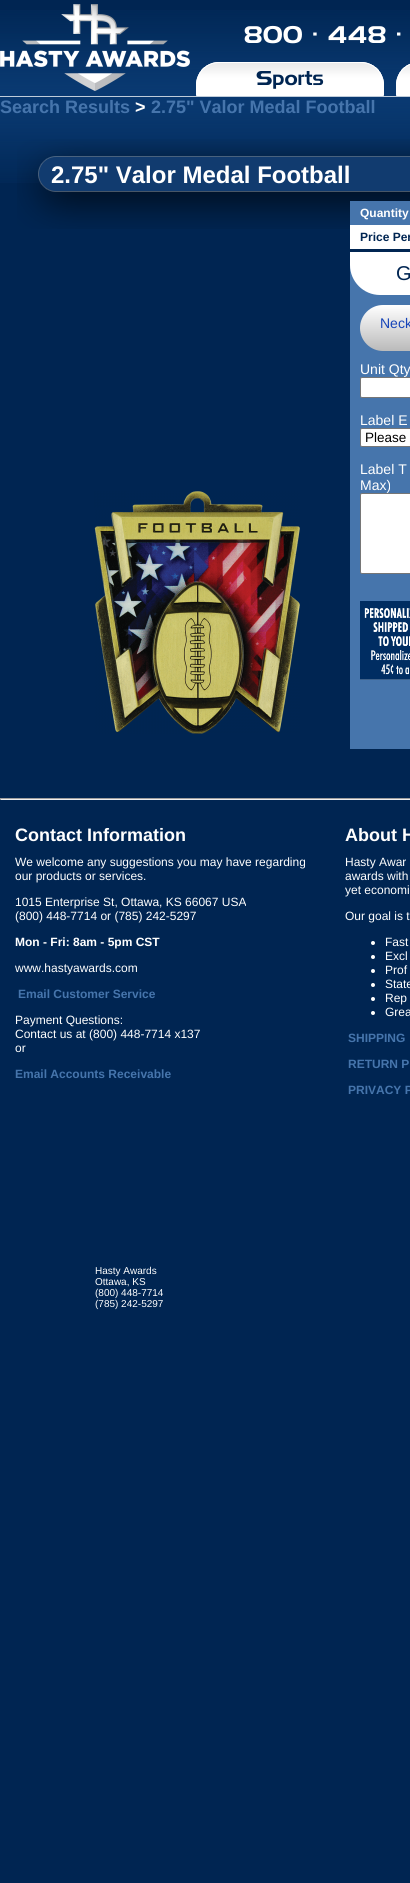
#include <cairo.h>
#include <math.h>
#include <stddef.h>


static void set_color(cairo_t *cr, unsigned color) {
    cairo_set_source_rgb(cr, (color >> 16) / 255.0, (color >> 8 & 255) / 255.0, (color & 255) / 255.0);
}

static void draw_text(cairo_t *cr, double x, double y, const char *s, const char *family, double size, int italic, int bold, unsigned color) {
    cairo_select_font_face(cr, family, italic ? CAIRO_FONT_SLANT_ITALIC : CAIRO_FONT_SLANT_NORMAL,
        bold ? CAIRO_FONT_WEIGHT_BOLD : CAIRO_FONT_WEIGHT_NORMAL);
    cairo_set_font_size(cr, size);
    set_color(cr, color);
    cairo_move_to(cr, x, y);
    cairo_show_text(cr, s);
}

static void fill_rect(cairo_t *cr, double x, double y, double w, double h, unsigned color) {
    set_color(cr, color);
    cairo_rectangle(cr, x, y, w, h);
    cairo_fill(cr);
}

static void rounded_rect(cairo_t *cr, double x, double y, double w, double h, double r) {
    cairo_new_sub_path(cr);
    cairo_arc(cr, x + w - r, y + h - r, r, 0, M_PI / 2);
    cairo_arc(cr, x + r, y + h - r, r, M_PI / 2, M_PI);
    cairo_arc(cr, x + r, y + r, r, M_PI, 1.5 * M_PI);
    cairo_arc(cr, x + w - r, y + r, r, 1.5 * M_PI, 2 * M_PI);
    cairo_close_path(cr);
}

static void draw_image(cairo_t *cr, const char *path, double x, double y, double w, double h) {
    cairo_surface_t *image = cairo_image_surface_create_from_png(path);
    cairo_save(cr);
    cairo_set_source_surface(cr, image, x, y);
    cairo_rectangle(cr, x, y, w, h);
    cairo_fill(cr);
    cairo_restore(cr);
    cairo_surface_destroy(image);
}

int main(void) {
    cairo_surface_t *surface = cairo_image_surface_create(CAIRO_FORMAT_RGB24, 410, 1883);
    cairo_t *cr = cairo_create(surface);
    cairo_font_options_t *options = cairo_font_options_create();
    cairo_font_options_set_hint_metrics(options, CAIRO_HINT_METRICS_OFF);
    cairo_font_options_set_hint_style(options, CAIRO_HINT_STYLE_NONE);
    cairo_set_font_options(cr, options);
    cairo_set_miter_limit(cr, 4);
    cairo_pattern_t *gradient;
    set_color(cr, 0x002552);
    cairo_paint(cr);
    draw_image(cr, "assets/img1.png", 0, 10, 410, 173);
    draw_image(cr, "assets/img2.png", 0, 4, 190, 87);
    draw_text(cr, 244, 43, "800 · 448 ·", "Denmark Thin", 24, 0, 0, 0xFFFFFF);
    draw_image(cr, "assets/img3.png", 196, 62, 188, 34);
    draw_text(cr, 256, 85, "Sports", "Denmark Thin", 20, 0, 0, 0x002552);
    draw_image(cr, "assets/img4.png", 396, 63, 14, 33);
    draw_text(cr, 0, 113, "Search Results", "Liberation Sans", 18, 0, 1, 0x4675AC);
    draw_text(cr, 135, 113, ">", "Liberation Sans", 18, 0, 1, 0xFFFFFF);
    draw_text(cr, 151, 113, "2.75\" Valor Medal Football", "Liberation Sans", 18, 0, 1, 0x4675AC);
    draw_image(cr, "assets/img5.png", 17, 139, 393, 90);
    draw_text(cr, 51, 183, "2.75\" Valor Medal Football", "Liberation Sans", 24, 0, 1, 0xFFFFFF);
    fill_rect(cr, 350, 201, 60, 24, 0x4675AC);
    draw_text(cr, 360, 217, "Quantity", "Liberation Sans", 12, 0, 1, 0xFFFFFF);
    fill_rect(cr, 350, 225, 60, 24, 0xFFFFFF);
    draw_text(cr, 360, 241, "Price Per", "Liberation Sans", 12, 0, 1, 0x002552);
    fill_rect(cr, 350, 265, 60, 484, 0x4675AC);
    set_color(cr, 0xFFFFFF);
    cairo_new_path(cr);
    cairo_move_to(cr, 350, 252);
    cairo_line_to(cr, 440, 252);
    cairo_line_to(cr, 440, 265);
    cairo_curve_to(cr, 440, 281.5, 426.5, 295, 410, 295);
    cairo_line_to(cr, 380, 295);
    cairo_curve_to(cr, 363.5, 295, 350, 281.5, 350, 265);
    cairo_close_path(cr);
    cairo_fill(cr);
    draw_text(cr, 396, 280, "G", "Liberation Sans", 20, 0, 0, 0x002552);
    gradient = cairo_pattern_create_linear(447, 305, 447, 351);
    cairo_pattern_add_color_stop_rgba(gradient, 0, 1, 1, 1, 1);
    cairo_pattern_add_color_stop_rgba(gradient, 1, 0.729, 0.729, 0.729, 1);
    cairo_set_source(cr, gradient);
    cairo_pattern_destroy(gradient);
    rounded_rect(cr, 360, 305, 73, 46, 23);
    cairo_fill(cr);
    draw_text(cr, 380, 328, "Neck", "Liberation Sans", 14, 0, 0, 0x1644B8);
    draw_text(cr, 360, 374, "Unit Qty", "Liberation Sans", 14, 0, 0, 0xFFFFFF);
    rounded_rect(cr, 360.5, 377.5, 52, 20, 1.5);
    cairo_fill_preserve(cr);
    set_color(cr, 0x767676);
    cairo_set_line_width(cr, 1);
    cairo_stroke(cr);
    draw_text(cr, 360, 425, "Label E", "Liberation Sans", 14, 0, 0, 0xFFFFFF);
    rounded_rect(cr, 360.5, 428.5, 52, 18, 1.5);
    cairo_fill_preserve(cr);
    set_color(cr, 0x767676);
    cairo_stroke(cr);
    draw_text(cr, 365, 442, "Please", "Liberation Sans", 13.5, 0, 0, 0x000000);
    draw_text(cr, 360, 474, "Label T", "Liberation Sans", 14, 0, 0, 0xFFFFFF);
    draw_text(cr, 360, 490, "Max)", "Liberation Sans", 14, 0, 0, 0xFFFFFF);
    rounded_rect(cr, 360.5, 493.5, 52, 80, 1.5);
    cairo_fill_preserve(cr);
    set_color(cr, 0x767676);
    cairo_stroke(cr);
    draw_image(cr, "assets/img6.png", 360, 601, 50, 79);
    draw_image(cr, "assets/img7.png", 94, 491, 206, 243);
    fill_rect(cr, 0, 798, 410, 1, 0x9F9F9F);
    fill_rect(cr, 0, 799, 410, 1, 0xEEEEEE);
    fill_rect(cr, 0, 798, 1, 2, 0x9F9F9F);
    draw_text(cr, 15, 841, "Contact Information", "Liberation Sans", 18, 0, 1, 0xFFFFFF);
    draw_text(cr, 15, 866, "We welcome any suggestions you may have regarding", "Liberation Sans", 12, 0, 0, 0xFFFFFF);
    draw_text(cr, 15, 880, "our products or services.", "Liberation Sans", 12, 0, 0, 0xFFFFFF);
    draw_text(cr, 15, 906, "1015 Enterprise St, Ottawa, KS 66067 USA", "Liberation Sans", 12, 0, 0, 0xFFFFFF);
    draw_text(cr, 15, 920, "(800) 448-7714 or (785) 242-5297", "Liberation Sans", 12, 0, 0, 0xFFFFFF);
    draw_text(cr, 15, 946, "Mon - Fri: 8am - 5pm CST", "Liberation Sans", 12, 0, 1, 0xFFFFFF);
    draw_text(cr, 15, 972, "www.hastyawards.com", "Liberation Sans", 12, 0, 0, 0xFFFFFF);
    draw_text(cr, 18, 998, "Email Customer Service", "Liberation Sans", 12, 0, 1, 0x4675AC);
    draw_text(cr, 15, 1024, "Payment Questions:", "Liberation Sans", 12, 0, 0, 0xFFFFFF);
    draw_text(cr, 15, 1038, "Contact us at (800) 448-7714 x137", "Liberation Sans", 12, 0, 0, 0xFFFFFF);
    draw_text(cr, 15, 1052, "or", "Liberation Sans", 12, 0, 0, 0xFFFFFF);
    draw_text(cr, 15, 1078, "Email Accounts Receivable", "Liberation Sans", 12, 0, 1, 0x4675AC);
    draw_text(cr, 345, 841, "About H", "Liberation Sans", 18, 0, 1, 0xFFFFFF);
    draw_text(cr, 345, 866, "Hasty Awar", "Liberation Sans", 12, 0, 0, 0xFFFFFF);
    draw_text(cr, 345, 880, "awards with", "Liberation Sans", 12, 0, 0, 0xFFFFFF);
    draw_text(cr, 345, 894, "yet economi", "Liberation Sans", 12, 0, 0, 0xFFFFFF);
    draw_text(cr, 345, 920, "Our goal is t", "Liberation Sans", 12, 0, 0, 0xFFFFFF);
    cairo_new_path(cr);
    cairo_arc(cr, 373, 943, 2, 0, 2 * M_PI);
    cairo_fill(cr);
    draw_text(cr, 385, 946, "Fast", "Liberation Sans", 12, 0, 0, 0xFFFFFF);
    cairo_new_path(cr);
    cairo_arc(cr, 373, 957, 2, 0, 2 * M_PI);
    cairo_fill(cr);
    draw_text(cr, 385, 960, "Excl", "Liberation Sans", 12, 0, 0, 0xFFFFFF);
    cairo_new_path(cr);
    cairo_arc(cr, 373, 971, 2, 0, 2 * M_PI);
    cairo_fill(cr);
    draw_text(cr, 385, 974, "Prof", "Liberation Sans", 12, 0, 0, 0xFFFFFF);
    cairo_new_path(cr);
    cairo_arc(cr, 373, 985, 2, 0, 2 * M_PI);
    cairo_fill(cr);
    draw_text(cr, 385, 988, "State", "Liberation Sans", 12, 0, 0, 0xFFFFFF);
    cairo_new_path(cr);
    cairo_arc(cr, 373, 999, 2, 0, 2 * M_PI);
    cairo_fill(cr);
    draw_text(cr, 385, 1002, "Rep", "Liberation Sans", 12, 0, 0, 0xFFFFFF);
    cairo_new_path(cr);
    cairo_arc(cr, 373, 1013, 2, 0, 2 * M_PI);
    cairo_fill(cr);
    draw_text(cr, 385, 1016, "Grea", "Liberation Sans", 12, 0, 0, 0xFFFFFF);
    draw_text(cr, 348, 1042, "SHIPPING", "Liberation Sans", 12, 0, 1, 0x4675AC);
    draw_text(cr, 348, 1068, "RETURN P", "Liberation Sans", 12, 0, 1, 0x4675AC);
    draw_text(cr, 348, 1094, "PRIVACY P", "Liberation Sans", 12, 0, 1, 0x4675AC);
    draw_text(cr, 95, 1274, "Hasty Awards", "Liberation Sans", 10, 0, 0, 0xFFFFFF);
    draw_text(cr, 95, 1285, "Ottawa, KS", "Liberation Sans", 10, 0, 0, 0xFFFFFF);
    draw_text(cr, 95, 1296, "(800) 448-7714", "Liberation Sans", 10, 0, 0, 0xFFFFFF);
    draw_text(cr, 95, 1307, "(785) 242-5297", "Liberation Sans", 10, 0, 0, 0xFFFFFF);
    cairo_surface_write_to_png(surface, "output.png");
    cairo_font_options_destroy(options);
    cairo_destroy(cr);
    cairo_surface_destroy(surface);
    return 0;
}
